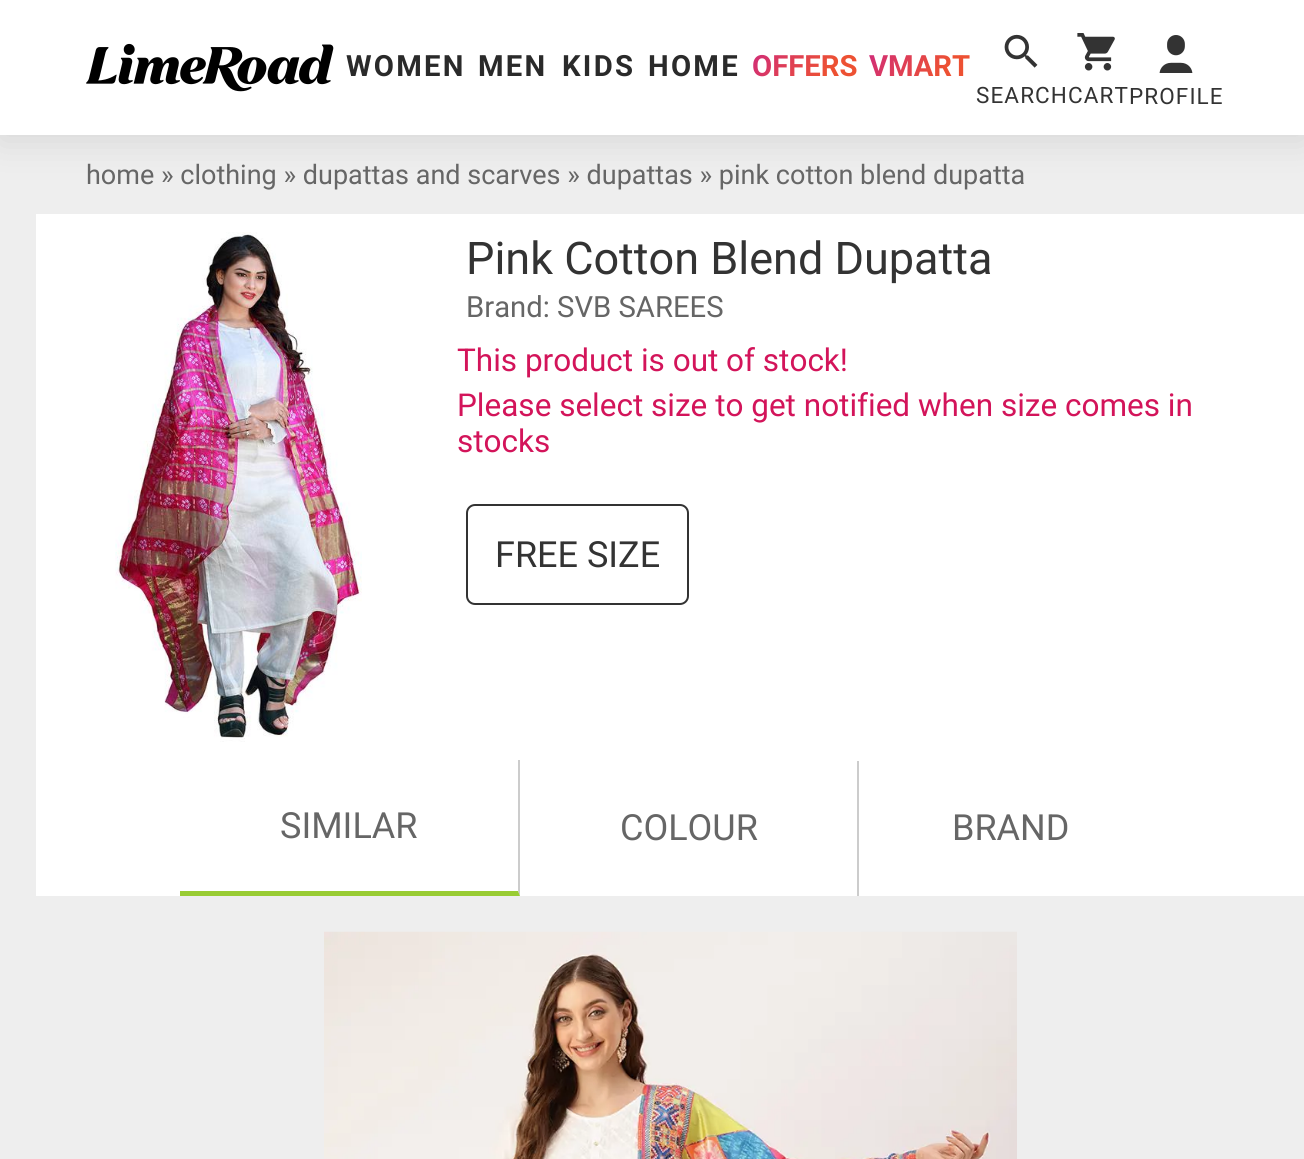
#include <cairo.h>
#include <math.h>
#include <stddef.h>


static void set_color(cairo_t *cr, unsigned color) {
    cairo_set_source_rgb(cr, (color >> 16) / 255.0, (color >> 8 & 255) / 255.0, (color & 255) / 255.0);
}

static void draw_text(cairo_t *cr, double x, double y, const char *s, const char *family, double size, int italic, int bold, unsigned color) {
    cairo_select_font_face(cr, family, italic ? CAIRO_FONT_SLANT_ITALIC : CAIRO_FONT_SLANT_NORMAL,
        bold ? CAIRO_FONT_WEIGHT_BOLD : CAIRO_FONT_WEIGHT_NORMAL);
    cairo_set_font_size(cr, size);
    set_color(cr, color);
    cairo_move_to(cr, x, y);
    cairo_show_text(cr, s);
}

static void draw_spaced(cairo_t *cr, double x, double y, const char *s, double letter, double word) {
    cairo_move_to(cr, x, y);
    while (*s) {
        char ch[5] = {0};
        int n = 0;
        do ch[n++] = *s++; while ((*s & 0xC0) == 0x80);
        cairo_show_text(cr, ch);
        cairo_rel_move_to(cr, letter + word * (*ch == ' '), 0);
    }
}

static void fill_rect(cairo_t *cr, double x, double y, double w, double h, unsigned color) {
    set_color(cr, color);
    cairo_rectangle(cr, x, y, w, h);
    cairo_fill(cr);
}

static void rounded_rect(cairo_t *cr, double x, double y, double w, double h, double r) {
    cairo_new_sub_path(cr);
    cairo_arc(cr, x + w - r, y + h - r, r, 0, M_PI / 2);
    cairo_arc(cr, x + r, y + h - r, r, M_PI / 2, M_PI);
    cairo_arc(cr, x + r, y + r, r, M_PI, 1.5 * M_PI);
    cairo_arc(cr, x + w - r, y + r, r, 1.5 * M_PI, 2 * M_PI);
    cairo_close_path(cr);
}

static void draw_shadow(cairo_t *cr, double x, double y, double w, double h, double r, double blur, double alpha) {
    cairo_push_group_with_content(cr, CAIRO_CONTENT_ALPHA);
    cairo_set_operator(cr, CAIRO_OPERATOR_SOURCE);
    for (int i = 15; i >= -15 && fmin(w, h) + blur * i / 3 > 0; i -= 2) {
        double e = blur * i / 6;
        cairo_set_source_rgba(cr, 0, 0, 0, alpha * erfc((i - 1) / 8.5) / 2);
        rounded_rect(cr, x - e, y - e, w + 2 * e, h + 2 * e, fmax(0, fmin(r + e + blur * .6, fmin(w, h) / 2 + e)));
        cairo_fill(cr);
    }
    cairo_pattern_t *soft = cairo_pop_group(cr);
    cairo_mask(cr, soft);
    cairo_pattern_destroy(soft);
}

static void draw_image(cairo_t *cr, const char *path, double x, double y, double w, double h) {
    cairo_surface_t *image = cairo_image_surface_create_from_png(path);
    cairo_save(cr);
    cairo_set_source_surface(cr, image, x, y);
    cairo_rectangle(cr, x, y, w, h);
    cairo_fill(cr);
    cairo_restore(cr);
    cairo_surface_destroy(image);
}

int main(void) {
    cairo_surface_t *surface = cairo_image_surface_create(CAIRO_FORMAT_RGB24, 1304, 1159);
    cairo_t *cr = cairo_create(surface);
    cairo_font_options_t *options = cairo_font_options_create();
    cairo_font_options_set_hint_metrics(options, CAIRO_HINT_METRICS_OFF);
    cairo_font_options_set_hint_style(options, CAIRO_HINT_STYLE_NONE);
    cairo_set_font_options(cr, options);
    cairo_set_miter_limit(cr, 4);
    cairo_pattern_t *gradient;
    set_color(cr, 0xEEEEEE);
    cairo_paint(cr);
    set_color(cr, 0x555555);
    draw_shadow(cr, 0, 5, 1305, 135, 0, 18, 0.16);
    fill_rect(cr, 0, 0, 1304, 135, 0xFFFFFF);
    draw_image(cr, "assets/img1.png", 86, 43, 248, 49);
    cairo_select_font_face(cr, "Roboto", CAIRO_FONT_SLANT_NORMAL, CAIRO_FONT_WEIGHT_BOLD);
    cairo_set_font_size(cr, 29.25);
    set_color(cr, 0x2A2A2A);
    draw_spaced(cr, 346, 76, "WOMEN", 2.25, 0);
    draw_spaced(cr, 478, 76, "MEN", 2.25, 0);
    draw_spaced(cr, 562, 76, "KIDS", 2.25, 0);
    draw_spaced(cr, 648, 76, "HOME", 2.25, 0);
    gradient = cairo_pattern_create_linear(755, 34, 850, 95);
    cairo_pattern_add_color_stop_rgba(gradient, 0, 0.808, 0.161, 0.494, 1);
    cairo_pattern_add_color_stop_rgba(gradient, 0.73, 0.929, 0.318, 0.2, 1);
    cairo_set_source(cr, gradient);
    cairo_pattern_destroy(gradient);
    cairo_move_to(cr, 752, 76);
    cairo_show_text(cr, "OFFERS");
    gradient = cairo_pattern_create_linear(872, 35, 963, 94);
    cairo_pattern_add_color_stop_rgba(gradient, 0, 0.808, 0.161, 0.494, 1);
    cairo_pattern_add_color_stop_rgba(gradient, 0.73, 0.929, 0.318, 0.2, 1);
    cairo_set_source(cr, gradient);
    cairo_pattern_destroy(gradient);
    cairo_move_to(cr, 869, 76);
    cairo_show_text(cr, "VMART");
    draw_image(cr, "assets/img2.png", 1077, 33, 38, 38);
    draw_image(cr, "assets/img3.png", 1004, 34, 34, 34);
    cairo_select_font_face(cr, "Roboto", CAIRO_FONT_SLANT_NORMAL, CAIRO_FONT_WEIGHT_NORMAL);
    cairo_set_font_size(cr, 22.5);
    set_color(cr, 0x333333);
    draw_spaced(cr, 976, 103, "SEARCHCART", 1.1, 0);
    draw_image(cr, "assets/img4.png", 1159, 35, 34, 38);
    draw_spaced(cr, 1129, 104, "PROFILE", 1.1, 0);
    draw_text(cr, 86, 184, "home » clothing » dupattas and scarves » dupattas » pink cotton blend dupatta", "Roboto", 27, 0, 0, 0x666666);
    fill_rect(cr, 36, 214, 1268, 682, 0xFFFFFF);
    draw_image(cr, "assets/img5.png", 115, 232, 247, 510);
    draw_text(cr, 466, 274, "Pink Cotton Blend Dupatta", "Roboto", 45, 0, 0, 0x333333);
    draw_text(cr, 466, 317, "Brand: SVB SAREES", "Roboto", 29.25, 0, 0, 0x666666);
    draw_text(cr, 457, 371, "This product is out of stock!", "Roboto", 31.5, 0, 0, 0xD3145A);
    draw_text(cr, 457, 416, "Please select size to get notified when size comes in", "Roboto", 31.5, 0, 0, 0xD3145A);
    draw_text(cr, 457, 452, "stocks", "Roboto", 31.5, 0, 0, 0xD3145A);
    rounded_rect(cr, 467, 505, 221, 99, 8);
    set_color(cr, 0x333333);
    cairo_stroke(cr);
    draw_text(cr, 495, 567, "FREE SIZE", "Roboto", 36, 0, 0, 0x333333);
    set_color(cr, 0xCCCCCC);
    cairo_new_path(cr);
    cairo_move_to(cr, 520, 760);
    cairo_line_to(cr, 520, 896);
    cairo_line_to(cr, 518, 891);
    cairo_line_to(cr, 518, 760);
    cairo_close_path(cr);
    cairo_fill(cr);
    set_color(cr, 0x99CC33);
    cairo_new_path(cr);
    cairo_move_to(cr, 520, 896);
    cairo_line_to(cr, 180, 896);
    cairo_line_to(cr, 180, 891);
    cairo_line_to(cr, 518, 891);
    cairo_close_path(cr);
    cairo_fill(cr);
    draw_text(cr, 280, 838, "SIMILAR", "Roboto", 36, 0, 0, 0x666666);
    fill_rect(cr, 857, 761, 2, 135, 0xCCCCCC);
    draw_text(cr, 620, 840, "COLOUR", "Roboto", 36, 0, 0, 0x666666);
    draw_text(cr, 952, 840, "BRAND", "Roboto", 36, 0, 0, 0x666666);
    draw_image(cr, "assets/img6.png", 324, 931, 693, 228);
    cairo_surface_write_to_png(surface, "output.png");
    cairo_font_options_destroy(options);
    cairo_destroy(cr);
    cairo_surface_destroy(surface);
    return 0;
}
